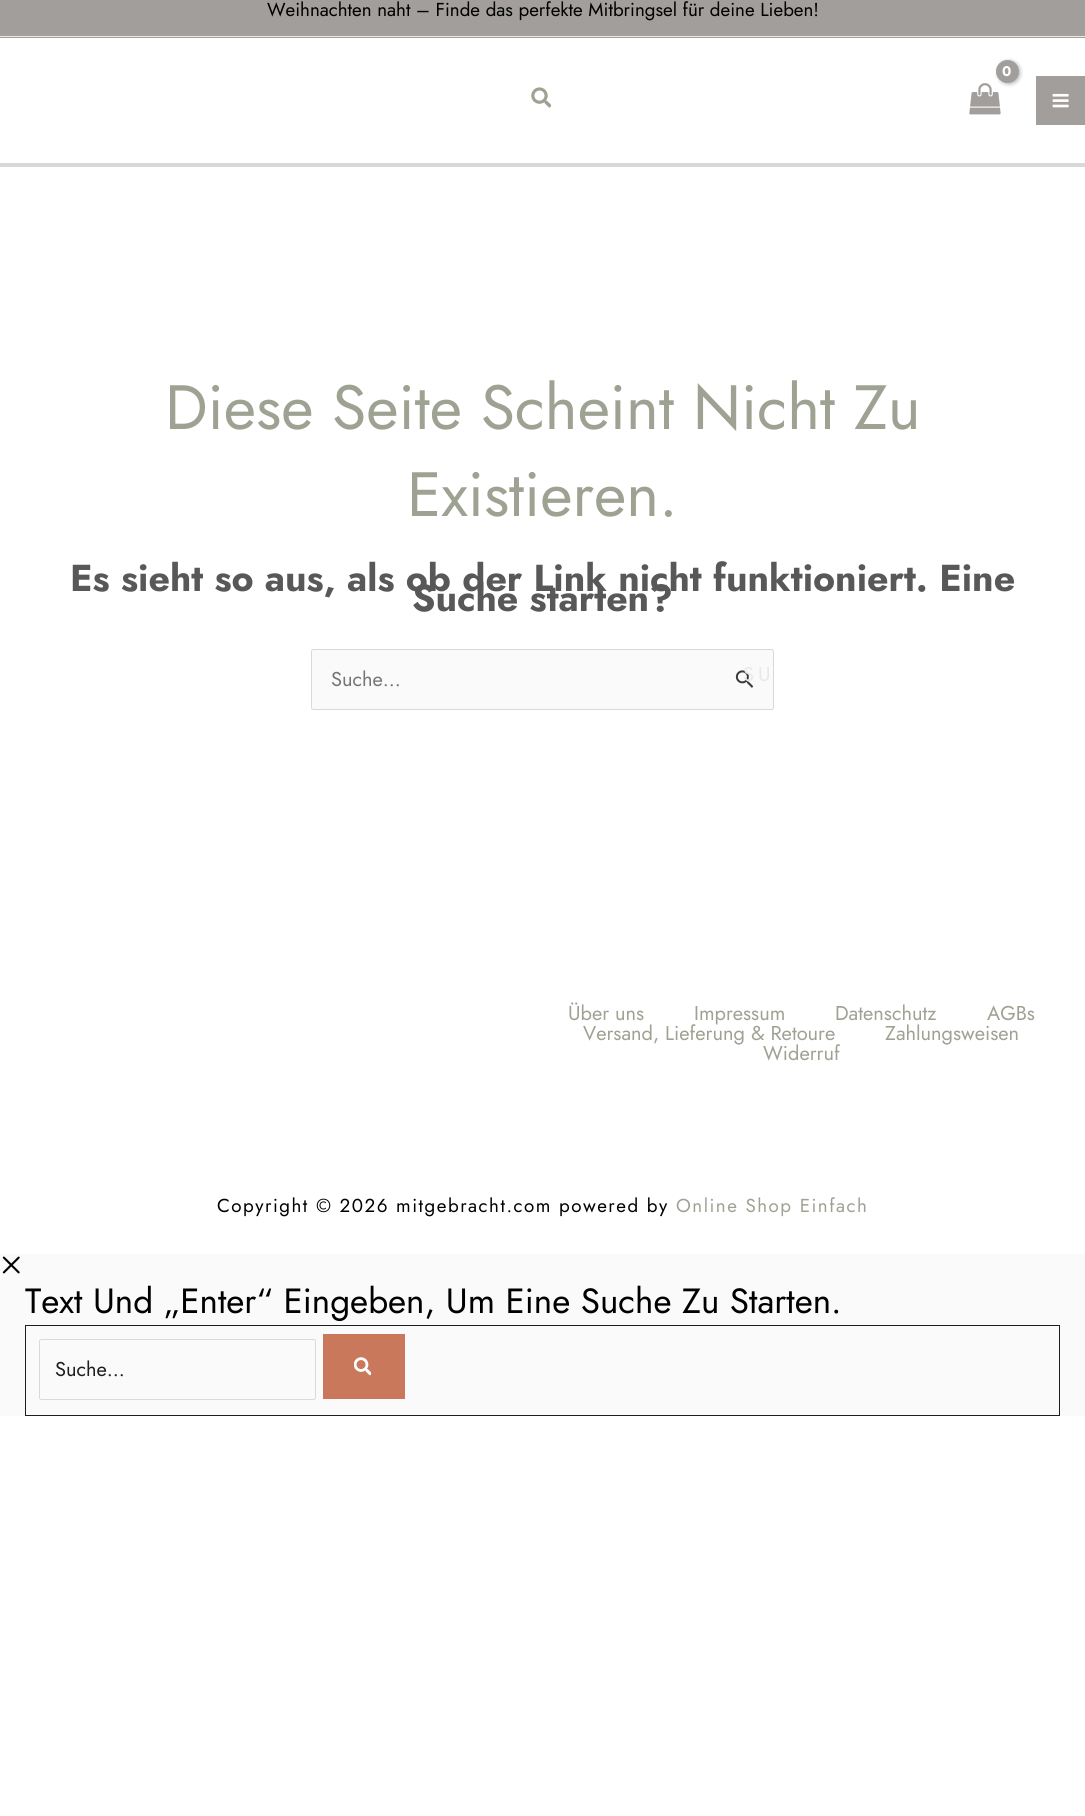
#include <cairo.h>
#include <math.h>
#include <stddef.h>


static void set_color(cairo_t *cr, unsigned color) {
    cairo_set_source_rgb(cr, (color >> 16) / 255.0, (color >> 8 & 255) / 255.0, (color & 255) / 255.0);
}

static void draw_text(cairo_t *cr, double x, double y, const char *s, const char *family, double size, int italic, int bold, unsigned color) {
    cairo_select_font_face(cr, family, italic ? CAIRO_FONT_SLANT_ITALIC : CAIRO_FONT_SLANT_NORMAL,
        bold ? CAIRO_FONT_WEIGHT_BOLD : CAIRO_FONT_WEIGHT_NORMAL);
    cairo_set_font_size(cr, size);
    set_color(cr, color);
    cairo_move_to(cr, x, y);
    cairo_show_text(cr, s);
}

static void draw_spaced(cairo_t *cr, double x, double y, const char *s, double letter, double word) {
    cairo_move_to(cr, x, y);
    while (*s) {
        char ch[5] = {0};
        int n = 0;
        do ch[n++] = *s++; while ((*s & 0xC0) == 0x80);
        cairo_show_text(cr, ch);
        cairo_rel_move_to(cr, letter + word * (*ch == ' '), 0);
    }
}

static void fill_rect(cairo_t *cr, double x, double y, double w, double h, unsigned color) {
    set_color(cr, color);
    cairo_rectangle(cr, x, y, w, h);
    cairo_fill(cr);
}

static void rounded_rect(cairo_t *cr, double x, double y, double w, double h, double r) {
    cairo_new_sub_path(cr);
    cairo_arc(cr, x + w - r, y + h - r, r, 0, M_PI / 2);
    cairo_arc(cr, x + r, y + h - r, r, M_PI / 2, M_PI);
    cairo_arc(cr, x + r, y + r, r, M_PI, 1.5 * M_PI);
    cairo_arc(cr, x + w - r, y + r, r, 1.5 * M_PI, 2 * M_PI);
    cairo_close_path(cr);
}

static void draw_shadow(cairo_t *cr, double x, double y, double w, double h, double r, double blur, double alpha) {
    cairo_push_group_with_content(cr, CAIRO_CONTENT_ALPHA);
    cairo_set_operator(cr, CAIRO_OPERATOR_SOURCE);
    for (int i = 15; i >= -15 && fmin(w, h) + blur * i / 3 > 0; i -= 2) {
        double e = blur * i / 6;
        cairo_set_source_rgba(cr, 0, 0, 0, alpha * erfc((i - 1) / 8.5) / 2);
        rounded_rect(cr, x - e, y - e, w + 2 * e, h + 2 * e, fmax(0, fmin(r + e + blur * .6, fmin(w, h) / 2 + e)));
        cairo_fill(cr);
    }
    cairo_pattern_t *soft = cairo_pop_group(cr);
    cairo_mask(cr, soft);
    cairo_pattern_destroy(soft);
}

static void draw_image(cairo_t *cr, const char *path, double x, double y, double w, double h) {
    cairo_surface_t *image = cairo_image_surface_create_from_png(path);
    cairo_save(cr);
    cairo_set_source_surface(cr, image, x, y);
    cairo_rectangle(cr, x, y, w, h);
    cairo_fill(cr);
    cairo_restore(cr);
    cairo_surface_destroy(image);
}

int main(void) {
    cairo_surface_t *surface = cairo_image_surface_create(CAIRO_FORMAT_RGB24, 1085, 1816);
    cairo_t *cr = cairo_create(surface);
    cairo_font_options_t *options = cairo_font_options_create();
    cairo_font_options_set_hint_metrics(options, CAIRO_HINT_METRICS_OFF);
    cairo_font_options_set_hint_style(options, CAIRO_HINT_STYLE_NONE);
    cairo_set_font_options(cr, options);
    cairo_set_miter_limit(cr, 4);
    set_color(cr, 0xFFFFFF);
    cairo_paint(cr);
    fill_rect(cr, 0, 0, 1085, 38, 0xA19E9B);
    fill_rect(cr, 0, 36, 1085, 1, 0xEAEAEA);
    draw_text(cr, 267, 16, "Weihnachten naht – Finde das perfekte Mitbringsel für deine Lieben!", "Jost", 18.75, 0, 0, 0x000000);
    fill_rect(cr, 0, 163, 1085, 4, 0xD9D9D9);
    draw_image(cr, "assets/img1.png", 969, 83, 32, 32);
    set_color(cr, 0x000000);
    draw_shadow(cr, 998, 61, 22, 23, 11, 2, 0.3);
    set_color(cr, 0xA19E9B);
    cairo_arc(cr, 1007.5, 71.5, 11.5, 0, 2 * M_PI);
    cairo_fill(cr);
    cairo_select_font_face(cr, "Jost", CAIRO_FONT_SLANT_NORMAL, CAIRO_FONT_WEIGHT_BOLD);
    cairo_set_font_size(cr, 14);
    set_color(cr, 0xFFFFFF);
    draw_spaced(cr, 1002, 76, "0", -1, 0);
    fill_rect(cr, 1036, 76, 49, 49, 0xA19E9B);
    draw_image(cr, "assets/img2.png", 1052, 93, 17, 15);
    draw_image(cr, "assets/img3.png", 531, 87, 20, 21);
    draw_text(cr, 165, 429, "Diese Seite Scheint Nicht Zu", "Jost", 62.5, 0, 0, 0x9EA292);
    draw_text(cr, 407, 516, "Existieren.", "Jost", 62.5, 0, 0, 0x9EA292);
    draw_text(cr, 70, 591, "Es sieht so aus, als ob der Link nicht funktioniert. Eine", "Jost", 37.5, 0, 1, 0x585858);
    draw_text(cr, 412, 611, "Suche starten?", "Jost", 37.5, 0, 1, 0x585858);
    set_color(cr, 0xFAFAFA);
    rounded_rect(cr, 311.5, 649.5, 462, 60, 2);
    cairo_fill_preserve(cr);
    set_color(cr, 0xD9D9D9);
    cairo_set_line_width(cr, 1);
    cairo_stroke(cr);
    draw_text(cr, 331, 686, "Suche...", "Jost", 20, 0, 0, 0x757575);
    draw_image(cr, "assets/img4.png", 735, 670, 18, 18);
    set_color(cr, 0xE9E9E9);
    draw_spaced(cr, 743, 681, "SU", 4, 0);
    draw_text(cr, 568, 1020, "Über uns", "Jost", 20, 0, 0, 0x9EA292);
    draw_text(cr, 694, 1020, "Impressum", "Jost", 20, 0, 0, 0x9EA292);
    draw_text(cr, 835, 1020, "Datenschutz", "Jost", 20, 0, 0, 0x9EA292);
    draw_text(cr, 987, 1020, "AGBs", "Jost", 20, 0, 0, 0x9EA292);
    draw_text(cr, 583, 1040, "Versand, Lieferung & Retoure", "Jost", 20, 0, 0, 0x9EA292);
    draw_text(cr, 885, 1040, "Zahlungsweisen", "Jost", 20, 0, 0, 0x9EA292);
    draw_text(cr, 763, 1060, "Widerruf", "Jost", 20, 0, 0, 0x9EA292);
    cairo_set_font_size(cr, 18.75);
    set_color(cr, 0x000000);
    draw_spaced(cr, 217, 1212, "Copyright © 2026 mitgebracht.com powered by", 1.5, 0);
    set_color(cr, 0x9EA292);
    draw_spaced(cr, 676, 1212, "Online Shop Einfach", 1.5, 0);
    fill_rect(cr, 0, 1254, 1085, 162, 0xFAFAFA);
    draw_image(cr, "assets/img5.png", 2, 1256, 18, 18);
    draw_text(cr, 25, 1313, "Text Und „Enter“ Eingeben, Um Eine Suche Zu Starten.", "Jost", 35, 0, 0, 0x000000);
    cairo_rectangle(cr, 25.5, 1325.5, 1034, 90);
    set_color(cr, 0x1E1E1E);
    cairo_stroke(cr);
    rounded_rect(cr, 39.5, 1339.5, 276, 60, 2);
    set_color(cr, 0xD9D9D9);
    cairo_stroke(cr);
    draw_text(cr, 55, 1376, "Suche...", "Jost", 20, 0, 0, 0x1E1E1E);
    fill_rect(cr, 323, 1334, 82, 65, 0xCA785C);
    draw_image(cr, "assets/img6.png", 354, 1357, 17, 19);
    cairo_surface_write_to_png(surface, "output.png");
    cairo_font_options_destroy(options);
    cairo_destroy(cr);
    cairo_surface_destroy(surface);
    return 0;
}
